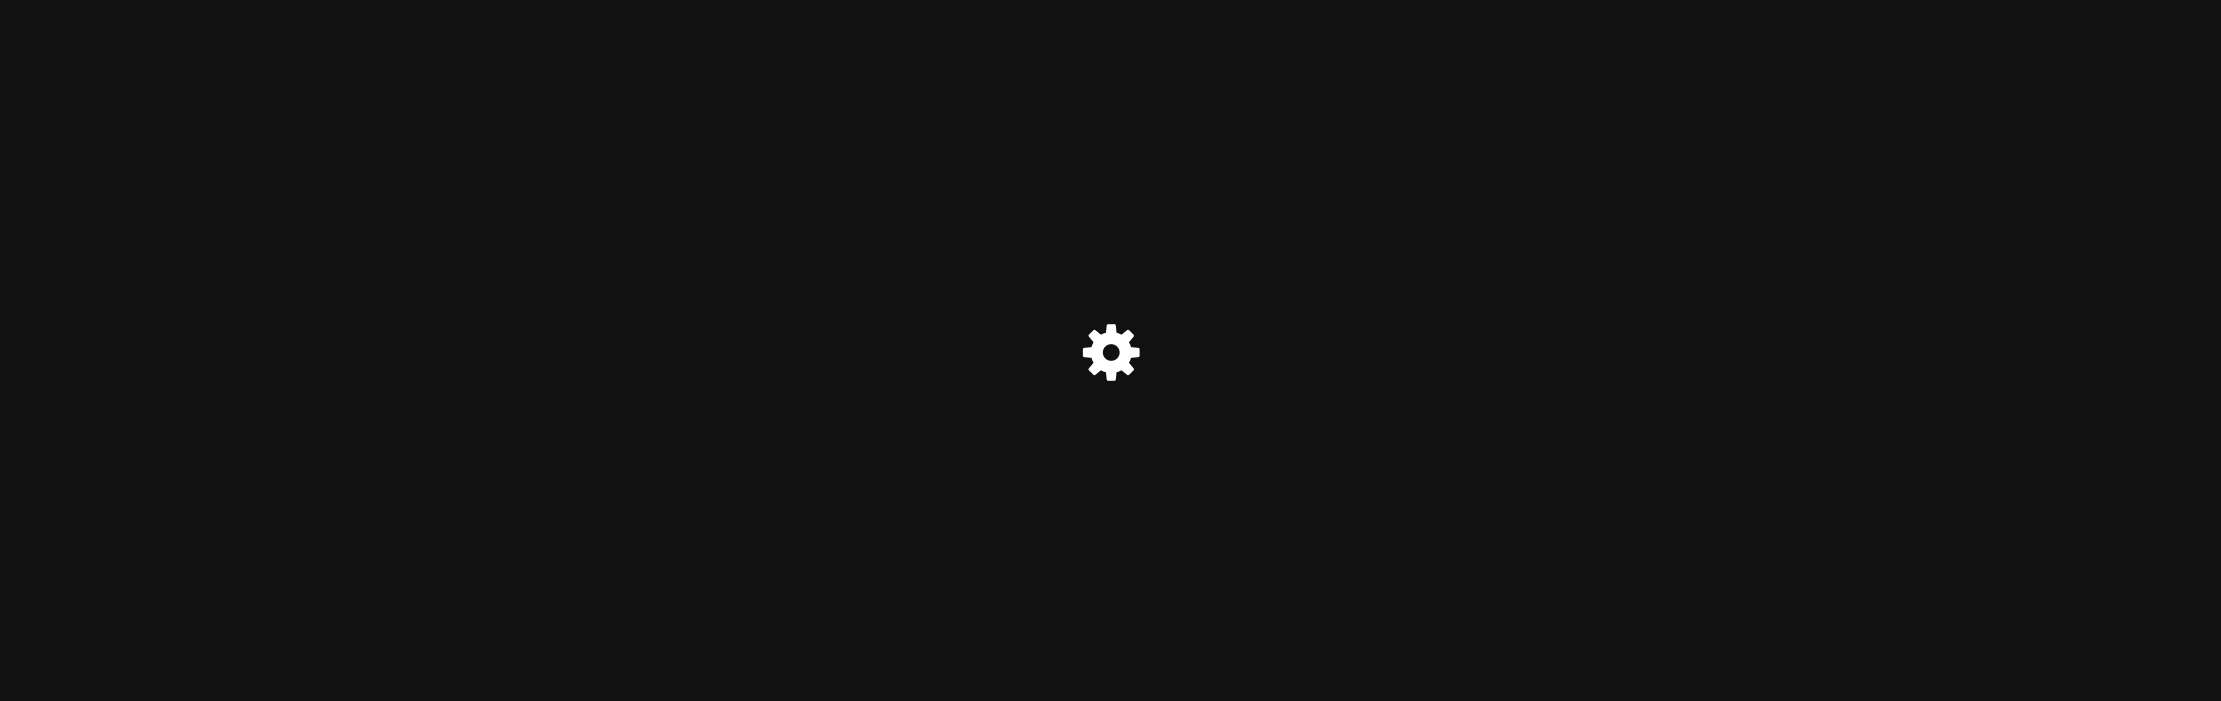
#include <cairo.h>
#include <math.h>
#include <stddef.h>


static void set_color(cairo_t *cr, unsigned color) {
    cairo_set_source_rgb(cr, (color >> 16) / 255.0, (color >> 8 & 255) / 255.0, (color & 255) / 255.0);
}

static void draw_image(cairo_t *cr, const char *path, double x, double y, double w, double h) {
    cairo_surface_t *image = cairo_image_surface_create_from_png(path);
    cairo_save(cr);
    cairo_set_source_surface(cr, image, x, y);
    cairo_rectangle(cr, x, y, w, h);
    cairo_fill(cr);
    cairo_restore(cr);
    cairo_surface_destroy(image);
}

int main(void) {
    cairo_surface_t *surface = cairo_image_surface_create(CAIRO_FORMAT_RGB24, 2221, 701);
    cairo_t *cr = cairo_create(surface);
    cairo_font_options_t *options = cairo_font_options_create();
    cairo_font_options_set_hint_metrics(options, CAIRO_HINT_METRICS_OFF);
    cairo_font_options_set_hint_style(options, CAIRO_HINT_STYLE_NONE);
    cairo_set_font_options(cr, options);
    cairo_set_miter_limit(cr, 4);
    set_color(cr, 0x111111);
    cairo_paint(cr);
    draw_image(cr, "assets/img1.png", 1082, 324, 58, 57);
    cairo_surface_write_to_png(surface, "output.png");
    cairo_font_options_destroy(options);
    cairo_destroy(cr);
    cairo_surface_destroy(surface);
    return 0;
}
